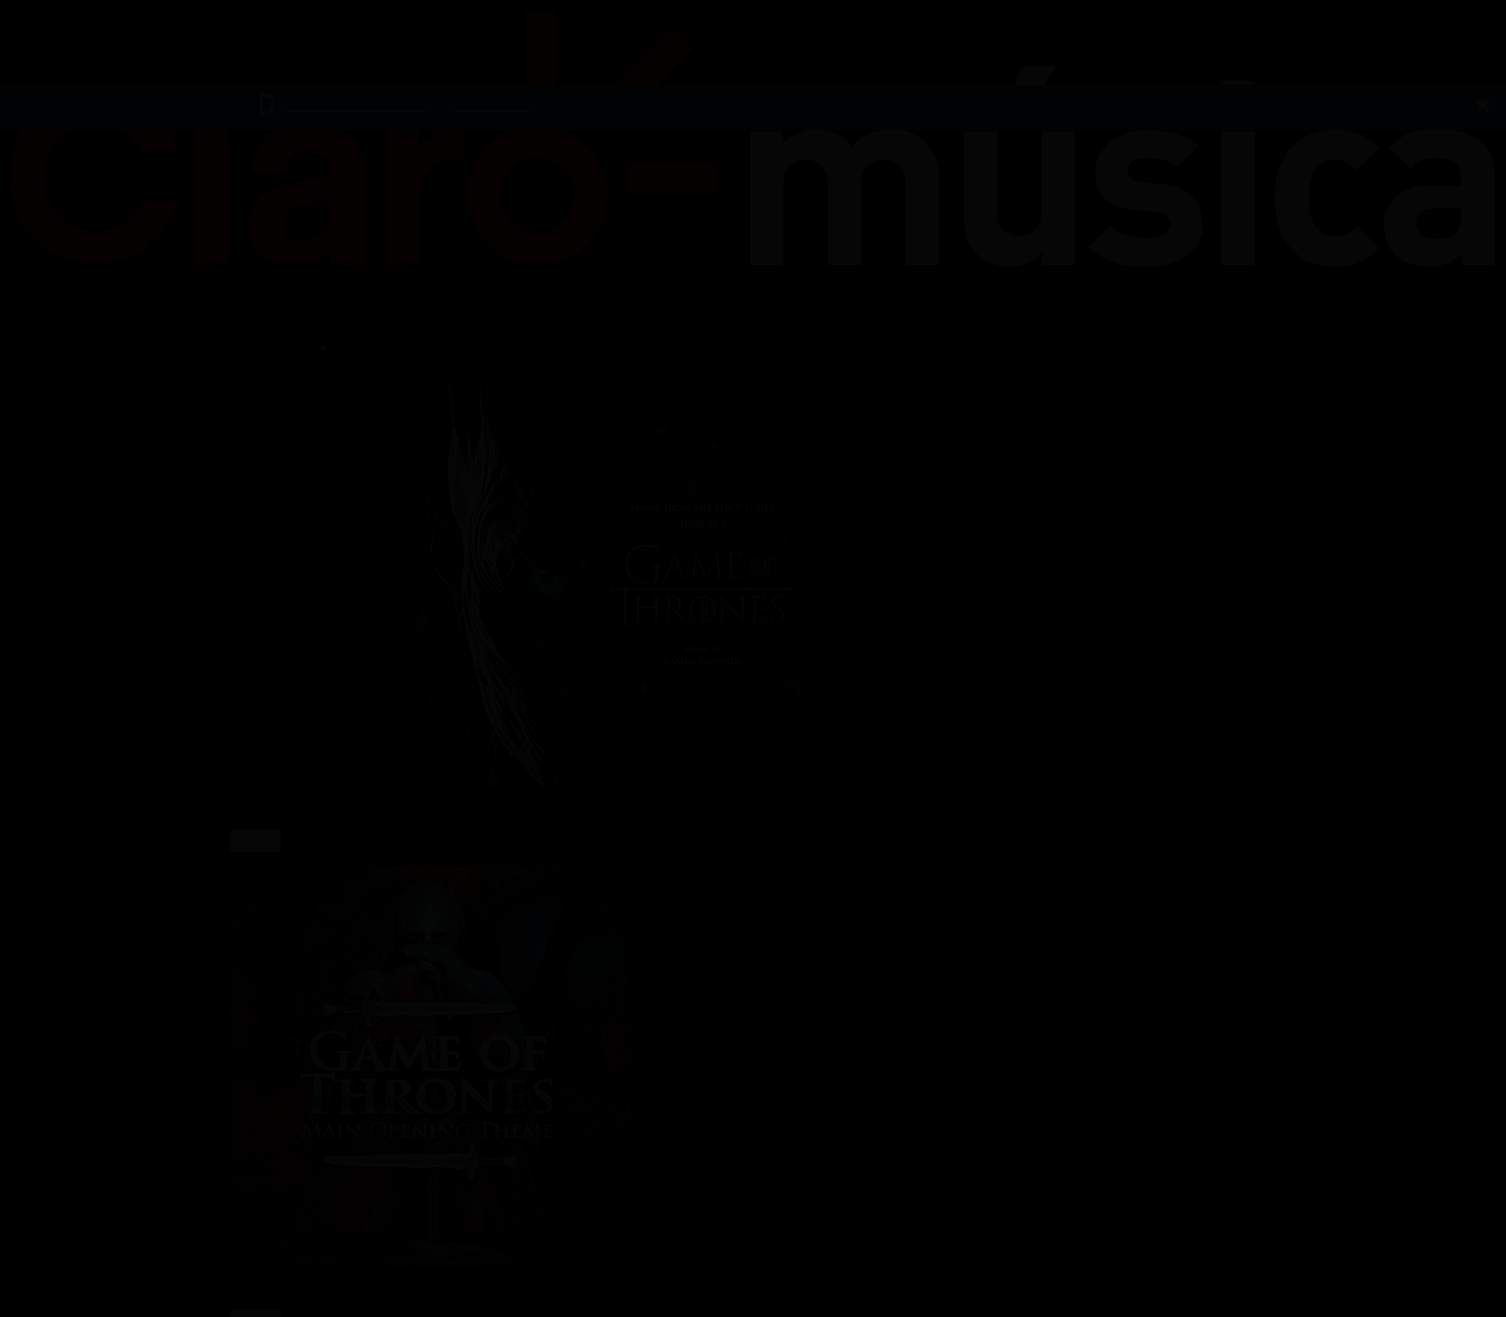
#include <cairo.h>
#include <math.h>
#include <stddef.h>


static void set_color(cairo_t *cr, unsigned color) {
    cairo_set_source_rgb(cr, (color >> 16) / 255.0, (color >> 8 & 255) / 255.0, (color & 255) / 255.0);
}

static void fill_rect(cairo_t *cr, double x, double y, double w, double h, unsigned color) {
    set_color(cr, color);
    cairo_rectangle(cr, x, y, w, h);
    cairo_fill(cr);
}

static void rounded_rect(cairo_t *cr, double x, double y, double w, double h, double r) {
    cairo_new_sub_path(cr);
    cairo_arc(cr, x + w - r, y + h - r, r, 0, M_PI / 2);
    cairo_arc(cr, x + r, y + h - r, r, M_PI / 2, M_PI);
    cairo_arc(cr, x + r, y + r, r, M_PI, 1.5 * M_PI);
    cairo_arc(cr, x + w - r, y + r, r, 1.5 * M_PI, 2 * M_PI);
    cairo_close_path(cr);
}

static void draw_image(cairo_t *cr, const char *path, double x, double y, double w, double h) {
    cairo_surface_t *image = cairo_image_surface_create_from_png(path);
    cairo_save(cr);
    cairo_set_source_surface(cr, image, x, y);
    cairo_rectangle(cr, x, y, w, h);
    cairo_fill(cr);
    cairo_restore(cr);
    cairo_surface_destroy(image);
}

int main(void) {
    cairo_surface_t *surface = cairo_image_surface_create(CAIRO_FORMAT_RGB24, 1506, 1317);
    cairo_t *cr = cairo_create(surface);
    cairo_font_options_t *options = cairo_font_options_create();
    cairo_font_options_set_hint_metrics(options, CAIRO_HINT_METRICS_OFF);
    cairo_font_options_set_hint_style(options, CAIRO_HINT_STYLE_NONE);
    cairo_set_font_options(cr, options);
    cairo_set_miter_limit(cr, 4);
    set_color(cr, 0x000000);
    cairo_paint(cr);
    draw_image(cr, "assets/img1.png", 9, 10, 1486, 257);
    fill_rect(cr, 0, 85, 1506, 45, 0x000203);
    draw_image(cr, "assets/img2.png", 260, 93, 13, 22);
    fill_rect(cr, 283, 111, 145, 1, 0x060606);
    fill_rect(cr, 451, 111, 81, 1, 0x060606);
    draw_image(cr, "assets/img3.png", 1476, 99, 14, 14);
    fill_rect(cr, 321, 347, 4, 3, 0x060606);
    draw_image(cr, "assets/img4.png", 415, 386, 400, 400);
    set_color(cr, 0x050505);
    rounded_rect(cr, 230, 830, 51, 22, 2);
    cairo_fill(cr);
    draw_image(cr, "assets/img5.png", 230, 866, 400, 400);
    rounded_rect(cr, 230, 1310, 51, 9, 2);
    cairo_fill(cr);
    cairo_surface_write_to_png(surface, "output.png");
    cairo_font_options_destroy(options);
    cairo_destroy(cr);
    cairo_surface_destroy(surface);
    return 0;
}
